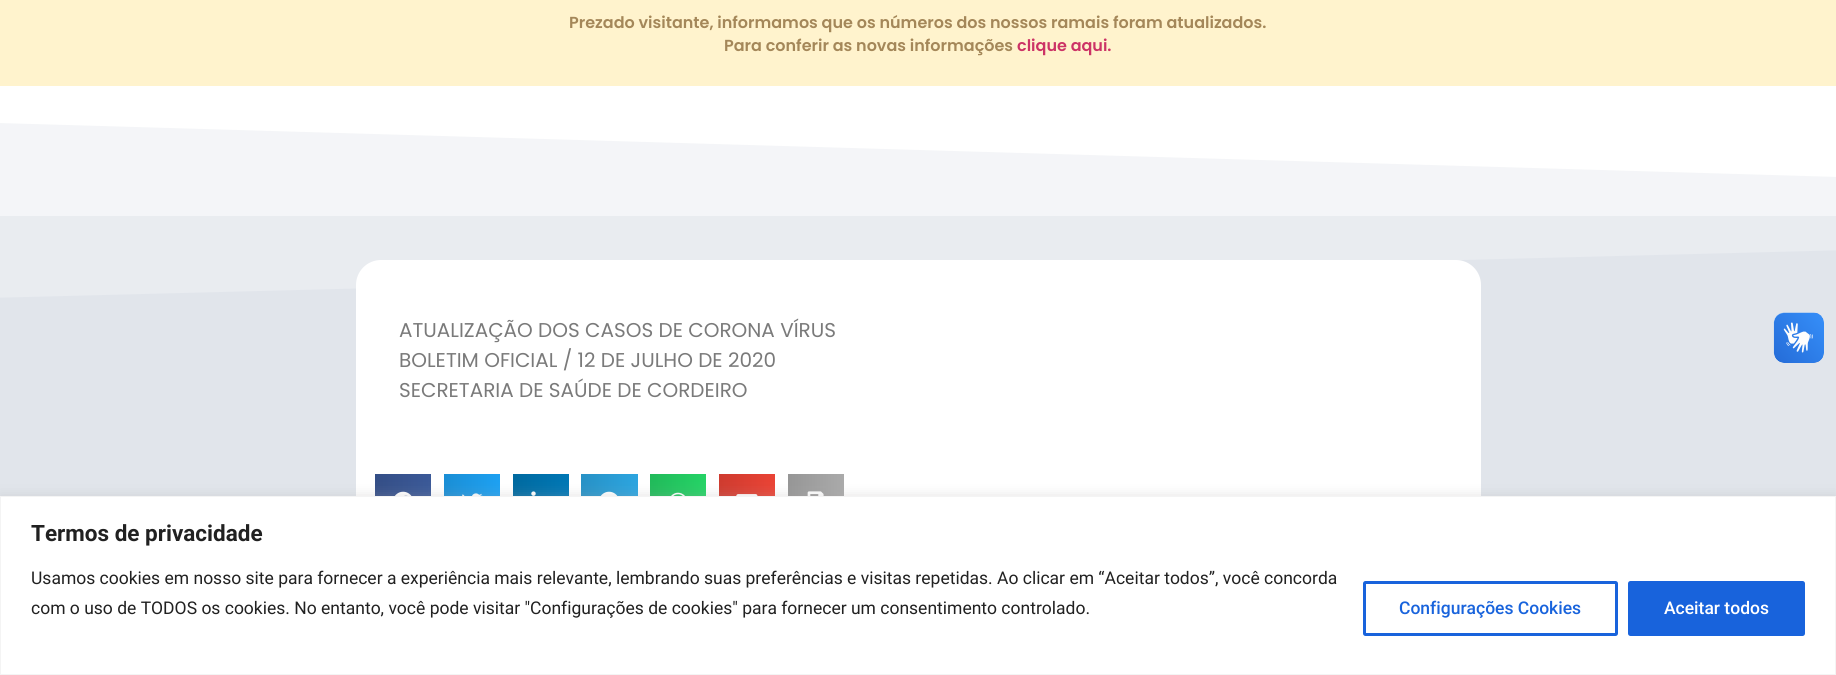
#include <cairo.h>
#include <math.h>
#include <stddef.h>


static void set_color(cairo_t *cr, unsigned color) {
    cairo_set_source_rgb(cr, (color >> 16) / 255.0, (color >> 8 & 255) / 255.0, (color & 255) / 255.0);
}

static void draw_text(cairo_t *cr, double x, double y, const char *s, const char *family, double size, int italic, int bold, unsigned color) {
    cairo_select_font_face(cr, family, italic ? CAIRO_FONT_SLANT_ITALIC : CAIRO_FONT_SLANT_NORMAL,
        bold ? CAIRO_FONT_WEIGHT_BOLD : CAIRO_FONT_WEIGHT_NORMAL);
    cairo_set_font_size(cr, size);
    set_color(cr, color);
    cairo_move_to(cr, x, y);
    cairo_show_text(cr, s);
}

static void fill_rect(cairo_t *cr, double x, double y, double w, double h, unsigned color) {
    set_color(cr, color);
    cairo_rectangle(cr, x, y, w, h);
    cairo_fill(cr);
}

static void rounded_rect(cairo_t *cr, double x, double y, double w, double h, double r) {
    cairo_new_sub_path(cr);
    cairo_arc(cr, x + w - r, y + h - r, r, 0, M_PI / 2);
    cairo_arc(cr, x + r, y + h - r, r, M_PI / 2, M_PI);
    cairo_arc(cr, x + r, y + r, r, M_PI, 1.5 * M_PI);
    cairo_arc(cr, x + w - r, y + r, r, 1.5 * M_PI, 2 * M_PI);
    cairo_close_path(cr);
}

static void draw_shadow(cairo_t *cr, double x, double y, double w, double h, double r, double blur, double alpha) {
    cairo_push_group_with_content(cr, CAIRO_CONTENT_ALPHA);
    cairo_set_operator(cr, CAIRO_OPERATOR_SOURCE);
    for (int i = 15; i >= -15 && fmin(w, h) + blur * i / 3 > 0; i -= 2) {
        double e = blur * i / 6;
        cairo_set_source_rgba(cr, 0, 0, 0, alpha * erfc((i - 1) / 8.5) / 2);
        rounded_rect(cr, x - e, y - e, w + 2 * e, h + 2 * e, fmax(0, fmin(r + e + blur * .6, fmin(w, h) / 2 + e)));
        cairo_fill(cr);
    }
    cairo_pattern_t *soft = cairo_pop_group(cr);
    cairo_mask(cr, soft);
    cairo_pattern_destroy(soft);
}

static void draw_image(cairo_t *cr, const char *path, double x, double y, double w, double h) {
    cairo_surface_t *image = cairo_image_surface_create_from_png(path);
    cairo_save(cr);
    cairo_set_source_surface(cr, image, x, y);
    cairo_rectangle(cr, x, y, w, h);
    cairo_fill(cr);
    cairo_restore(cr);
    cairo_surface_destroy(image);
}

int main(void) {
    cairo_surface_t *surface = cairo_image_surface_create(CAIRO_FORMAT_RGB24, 1836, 675);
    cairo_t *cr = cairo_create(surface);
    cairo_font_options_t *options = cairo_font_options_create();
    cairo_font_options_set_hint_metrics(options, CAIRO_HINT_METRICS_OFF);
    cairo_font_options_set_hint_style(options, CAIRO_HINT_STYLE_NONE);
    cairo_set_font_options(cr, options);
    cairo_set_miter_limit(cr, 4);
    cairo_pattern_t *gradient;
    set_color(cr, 0xE1E5EB);
    cairo_paint(cr);
    fill_rect(cr, 0, 123, 1836, 93, 0xF0F2F5);
    set_color(cr, 0xFFFFFF);
    cairo_new_path(cr);
    cairo_move_to(cr, -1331, 84);
    cairo_line_to(cr, 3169, 84);
    cairo_line_to(cr, 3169, 216);
    cairo_close_path(cr);
    cairo_fill(cr);
    cairo_set_source_rgba(cr, 1, 1, 1, 0.25);
    cairo_new_path(cr);
    cairo_move_to(cr, 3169, 84);
    cairo_line_to(cr, -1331, 84);
    cairo_line_to(cr, -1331, 332);
    cairo_line_to(cr, 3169, 216);
    cairo_close_path(cr);
    cairo_fill(cr);
    fill_rect(cr, 0, 0, 1836, 86, 0xFFF3CD);
    draw_text(cr, 569, 28, "Prezado visitante, informamos que os números dos nossos ramais foram atualizados.", "Poppins SemiBold", 16, 0, 0, 0xA48759);
    draw_text(cr, 724, 51, "Para conferir as novas informações", "Poppins SemiBold", 16, 0, 0, 0xA48759);
    draw_text(cr, 1017, 51, "clique aqui.", "Poppins SemiBold", 16, 0, 0, 0xCC3366);
    set_color(cr, 0xFFFFFF);
    rounded_rect(cr, 356, 260, 1125, 289, 25);
    cairo_fill(cr);
    draw_text(cr, 399, 337, "ATUALIZAÇÃO DOS CASOS DE CORONA VÍRUS", "Poppins", 20, 0, 0, 0x7A7A7A);
    draw_text(cr, 399, 367, "BOLETIM OFICIAL / 12 DE JULHO DE 2020", "Poppins", 20, 0, 0, 0x7A7A7A);
    draw_text(cr, 399, 397, "SECRETARIA DE SAÚDE DE CORDEIRO", "Poppins", 20, 0, 0, 0x7A7A7A);
    gradient = cairo_pattern_create_linear(375, 502, 431, 502);
    cairo_pattern_add_color_stop_rgba(gradient, 0, 0.204, 0.306, 0.525, 1);
    cairo_pattern_add_color_stop_rgba(gradient, 1, 0.231, 0.349, 0.596, 1);
    cairo_set_source(cr, gradient);
    cairo_pattern_destroy(gradient);
    cairo_rectangle(cr, 375, 474, 56, 22);
    cairo_fill(cr);
    draw_image(cr, "assets/img1.png", 394, 491, 18, 5);
    gradient = cairo_pattern_create_linear(444, 502, 500, 502);
    cairo_pattern_add_color_stop_rgba(gradient, 0, 0.102, 0.557, 0.835, 1);
    cairo_pattern_add_color_stop_rgba(gradient, 1, 0.114, 0.631, 0.949, 1);
    cairo_set_source(cr, gradient);
    cairo_pattern_destroy(gradient);
    cairo_rectangle(cr, 444, 474, 56, 22);
    cairo_fill(cr);
    draw_image(cr, "assets/img2.png", 462, 493, 21, 3);
    gradient = cairo_pattern_create_linear(513, 502, 569, 502);
    cairo_pattern_add_color_stop_rgba(gradient, 0, 0, 0.412, 0.624, 1);
    cairo_pattern_add_color_stop_rgba(gradient, 1, 0, 0.467, 0.71, 1);
    cairo_set_source(cr, gradient);
    cairo_pattern_destroy(gradient);
    cairo_rectangle(cr, 513, 474, 56, 22);
    cairo_fill(cr);
    draw_image(cr, "assets/img3.png", 531, 491, 5, 5);
    gradient = cairo_pattern_create_linear(581, 502, 638, 502);
    cairo_pattern_add_color_stop_rgba(gradient, 0, 0.153, 0.569, 0.773, 1);
    cairo_pattern_add_color_stop_rgba(gradient, 1, 0.173, 0.647, 0.878, 1);
    cairo_set_source(cr, gradient);
    cairo_pattern_destroy(gradient);
    cairo_rectangle(cr, 581, 474, 57, 22);
    cairo_fill(cr);
    draw_image(cr, "assets/img4.png", 600, 491, 18, 5);
    gradient = cairo_pattern_create_linear(650, 502, 706, 502);
    cairo_pattern_add_color_stop_rgba(gradient, 0, 0.129, 0.729, 0.353, 1);
    cairo_pattern_add_color_stop_rgba(gradient, 1, 0.145, 0.827, 0.4, 1);
    cairo_set_source(cr, gradient);
    cairo_pattern_destroy(gradient);
    cairo_rectangle(cr, 650, 474, 56, 22);
    cairo_fill(cr);
    draw_image(cr, "assets/img5.png", 671, 492, 14, 4);
    gradient = cairo_pattern_create_linear(719, 502, 775, 502);
    cairo_pattern_add_color_stop_rgba(gradient, 0, 0.808, 0.231, 0.184, 1);
    cairo_pattern_add_color_stop_rgba(gradient, 1, 0.918, 0.263, 0.208, 1);
    cairo_set_source(cr, gradient);
    cairo_pattern_destroy(gradient);
    cairo_rectangle(cr, 719, 474, 56, 22);
    cairo_fill(cr);
    draw_image(cr, "assets/img6.png", 736, 494, 22, 2);
    gradient = cairo_pattern_create_linear(788, 502, 844, 502);
    cairo_pattern_add_color_stop_rgba(gradient, 0, 0.588, 0.588, 0.588, 1);
    cairo_pattern_add_color_stop_rgba(gradient, 1, 0.667, 0.667, 0.667, 1);
    cairo_set_source(cr, gradient);
    cairo_pattern_destroy(gradient);
    cairo_rectangle(cr, 788, 474, 56, 22);
    cairo_fill(cr);
    draw_image(cr, "assets/img7.png", 807, 491, 17, 5);
    draw_image(cr, "assets/img8.png", 1773, 312, 51, 51);
    draw_image(cr, "assets/img9.png", 1774, 313, 50, 50);
    set_color(cr, 0xACABAB);
    draw_shadow(cr, 0, 495, 1836, 179, 0, 6, 0.3);
    set_color(cr, 0xFFFFFF);
    cairo_rectangle(cr, 0.5, 496.5, 1835, 178);
    cairo_fill_preserve(cr);
    set_color(cr, 0xF4F4F4);
    cairo_set_line_width(cr, 1);
    cairo_stroke(cr);
    draw_text(cr, 31, 541, "Termos de privacidade", "Roboto", 22.5, 0, 1, 0x212121);
    draw_text(cr, 31, 584, "Usamos cookies em nosso site para fornecer a experiência mais relevante, lembrando suas preferências e visitas repetidas. Ao clicar em “Aceitar todos”, você concorda", "Roboto", 17.5, 0, 0, 0x212121);
    draw_text(cr, 31, 614, "com o uso de TODOS os cookies. No entanto, você pode visitar \"Configurações de cookies\" para fornecer um consentimento controlado.", "Roboto", 17.5, 0, 0, 0x212121);
    rounded_rect(cr, 1364.5, 582.5, 252, 52, 1);
    set_color(cr, 0x1863DC);
    cairo_set_line_width(cr, 3);
    cairo_stroke(cr);
    draw_text(cr, 1399, 614, "Configurações Cookies", "Roboto Medium", 17.5, 0, 0, 0x1863DC);
    rounded_rect(cr, 1629.5, 582.5, 174, 52, 1);
    cairo_fill_preserve(cr);
    cairo_stroke(cr);
    draw_text(cr, 1664, 614, "Aceitar todos", "Roboto Medium", 17.5, 0, 0, 0xFFFFFF);
    cairo_surface_write_to_png(surface, "output.png");
    cairo_font_options_destroy(options);
    cairo_destroy(cr);
    cairo_surface_destroy(surface);
    return 0;
}
